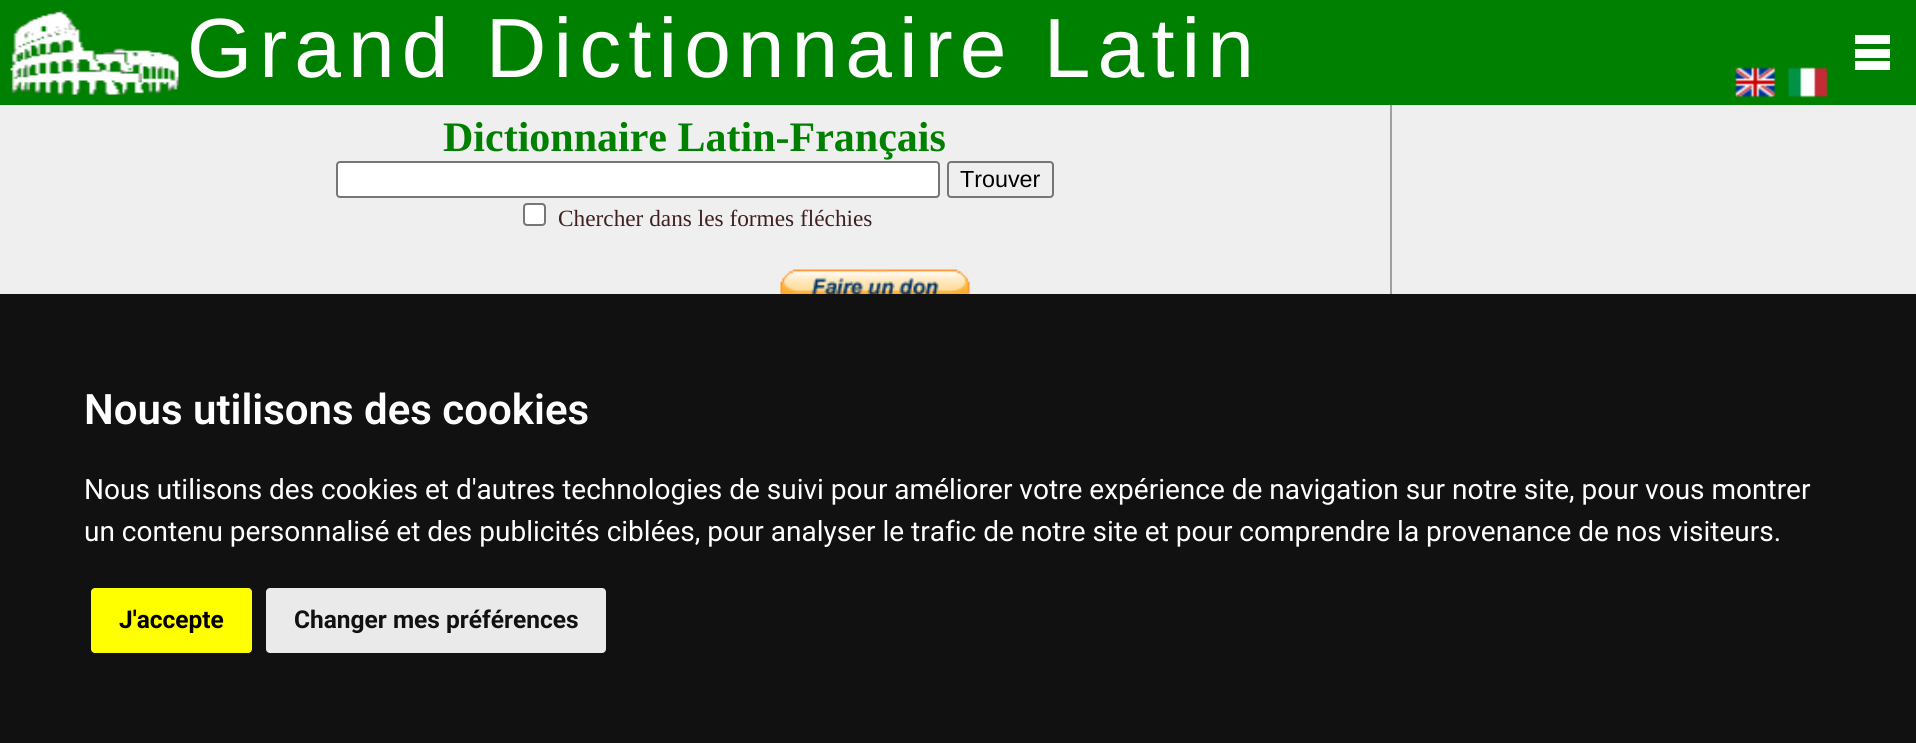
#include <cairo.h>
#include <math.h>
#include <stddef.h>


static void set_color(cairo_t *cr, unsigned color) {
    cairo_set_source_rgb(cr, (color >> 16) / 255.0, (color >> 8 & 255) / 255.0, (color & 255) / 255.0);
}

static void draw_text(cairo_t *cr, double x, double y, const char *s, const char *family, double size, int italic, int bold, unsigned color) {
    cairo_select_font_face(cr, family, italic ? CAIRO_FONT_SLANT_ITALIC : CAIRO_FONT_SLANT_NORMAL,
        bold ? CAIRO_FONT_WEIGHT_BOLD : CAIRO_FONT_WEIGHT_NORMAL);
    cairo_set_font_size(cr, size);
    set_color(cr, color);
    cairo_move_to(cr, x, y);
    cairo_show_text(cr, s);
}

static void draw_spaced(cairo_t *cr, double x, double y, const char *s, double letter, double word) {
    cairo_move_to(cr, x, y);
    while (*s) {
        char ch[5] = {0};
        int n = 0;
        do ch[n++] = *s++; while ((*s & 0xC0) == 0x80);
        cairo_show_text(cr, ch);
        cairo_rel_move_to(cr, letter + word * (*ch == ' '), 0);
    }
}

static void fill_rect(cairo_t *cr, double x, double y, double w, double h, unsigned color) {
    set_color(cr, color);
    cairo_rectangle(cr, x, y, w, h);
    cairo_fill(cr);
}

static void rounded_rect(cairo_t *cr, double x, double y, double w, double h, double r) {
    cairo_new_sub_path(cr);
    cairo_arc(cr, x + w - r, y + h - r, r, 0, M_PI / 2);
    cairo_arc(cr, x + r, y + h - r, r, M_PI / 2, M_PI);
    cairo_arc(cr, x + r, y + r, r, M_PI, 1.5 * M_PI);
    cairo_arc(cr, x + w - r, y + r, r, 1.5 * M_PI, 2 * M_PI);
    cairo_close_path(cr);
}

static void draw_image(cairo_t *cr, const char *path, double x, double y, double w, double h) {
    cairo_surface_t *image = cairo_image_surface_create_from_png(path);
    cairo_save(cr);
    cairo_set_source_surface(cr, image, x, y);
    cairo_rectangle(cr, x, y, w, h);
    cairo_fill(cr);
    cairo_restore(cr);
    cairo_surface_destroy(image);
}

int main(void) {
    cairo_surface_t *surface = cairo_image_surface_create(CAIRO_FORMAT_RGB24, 1916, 743);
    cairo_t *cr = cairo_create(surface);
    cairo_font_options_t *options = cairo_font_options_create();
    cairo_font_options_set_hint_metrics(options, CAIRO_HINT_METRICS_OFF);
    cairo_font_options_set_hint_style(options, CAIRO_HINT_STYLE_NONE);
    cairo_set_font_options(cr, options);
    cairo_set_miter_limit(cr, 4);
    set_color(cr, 0xEFEFEF);
    cairo_paint(cr);
    fill_rect(cr, 1390, 103, 2, 191, 0xA0A0A0);
    fill_rect(cr, 0, 0, 1916, 105, 0x008000);
    draw_image(cr, "assets/img1.png", 10, 10, 169, 85);
    cairo_select_font_face(cr, "Liberation Sans", CAIRO_FONT_SLANT_NORMAL, CAIRO_FONT_WEIGHT_NORMAL);
    cairo_set_font_size(cr, 84);
    set_color(cr, 0xFFFFFF);
    draw_spaced(cr, 187, 77, "Grand Dictionnaire Latin", 7, 0);
    fill_rect(cr, 1855, 61, 35, 9, 0xFFFFFF);
    fill_rect(cr, 1855, 49, 35, 9, 0xFFFFFF);
    fill_rect(cr, 1855, 35, 35, 9, 0xFFFFFF);
    draw_image(cr, "assets/img2.png", 1735, 67, 41, 31);
    draw_image(cr, "assets/img3.png", 1788, 67, 41, 31);
    draw_text(cr, 443, 151, "Dictionnaire Latin-Français", "Liberation Serif", 42, 0, 1, 0x008000);
    set_color(cr, 0xFFFFFF);
    rounded_rect(cr, 337, 162, 602, 35, 3);
    cairo_fill_preserve(cr);
    set_color(cr, 0x767676);
    cairo_stroke(cr);
    rounded_rect(cr, 948, 162, 105, 35, 3);
    cairo_stroke(cr);
    draw_text(cr, 960, 187, "Trouver", "Liberation Sans", 23.3, 0, 0, 0x000000);
    set_color(cr, 0xFFFFFF);
    rounded_rect(cr, 524, 204, 21, 21, 3);
    cairo_fill_preserve(cr);
    set_color(cr, 0x767676);
    cairo_stroke(cr);
    draw_text(cr, 558, 226, "Chercher dans les formes fléchies", "Liberation Serif", 23.3, 0, 0, 0x402020);
    draw_image(cr, "assets/img4.png", 780, 269, 190, 25);
    fill_rect(cr, 0, 294, 1916, 449, 0x111111);
    draw_text(cr, 84, 424, "Nous utilisons des cookies", "Roboto SemiBold", 42, 0, 0, 0xFFFFFF);
    draw_text(cr, 84, 499, "Nous utilisons des cookies et d'autres technologies de suivi pour améliorer votre expérience de navigation sur notre site, pour vous montrer", "Roboto", 28, 0, 0, 0xFFFFFF);
    draw_text(cr, 84, 541, "un contenu personnalisé et des publicités ciblées, pour analyser le trafic de notre site et pour comprendre la provenance de nos visiteurs.", "Roboto", 28, 0, 0, 0xFFFFFF);
    set_color(cr, 0xFFFF00);
    rounded_rect(cr, 91, 588, 161, 65, 4);
    cairo_fill(cr);
    draw_text(cr, 119, 628, "J'accepte", "Roboto", 24.5, 0, 1, 0x000000);
    set_color(cr, 0xEAEAEA);
    rounded_rect(cr, 266, 588, 340, 65, 4);
    cairo_fill(cr);
    draw_text(cr, 294, 628, "Changer mes préférences", "Roboto", 24.5, 0, 1, 0x111111);
    cairo_surface_write_to_png(surface, "output.png");
    cairo_font_options_destroy(options);
    cairo_destroy(cr);
    cairo_surface_destroy(surface);
    return 0;
}
